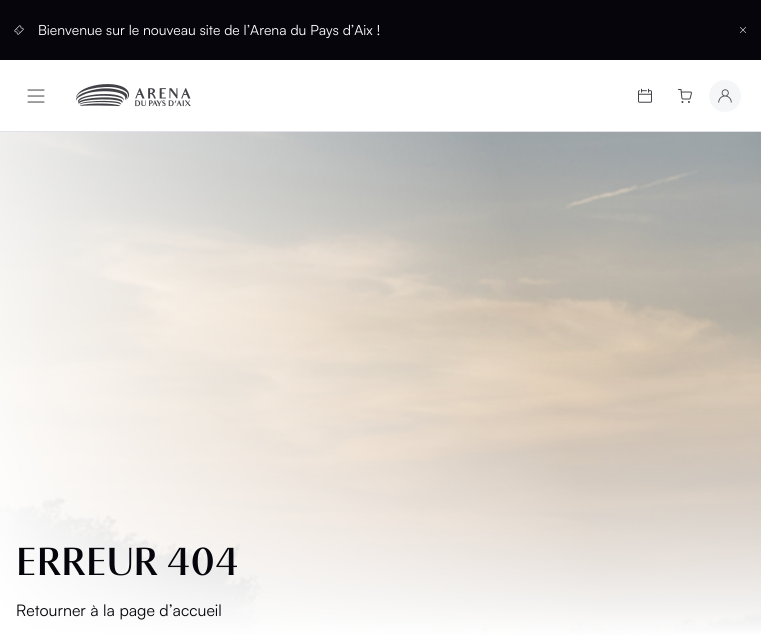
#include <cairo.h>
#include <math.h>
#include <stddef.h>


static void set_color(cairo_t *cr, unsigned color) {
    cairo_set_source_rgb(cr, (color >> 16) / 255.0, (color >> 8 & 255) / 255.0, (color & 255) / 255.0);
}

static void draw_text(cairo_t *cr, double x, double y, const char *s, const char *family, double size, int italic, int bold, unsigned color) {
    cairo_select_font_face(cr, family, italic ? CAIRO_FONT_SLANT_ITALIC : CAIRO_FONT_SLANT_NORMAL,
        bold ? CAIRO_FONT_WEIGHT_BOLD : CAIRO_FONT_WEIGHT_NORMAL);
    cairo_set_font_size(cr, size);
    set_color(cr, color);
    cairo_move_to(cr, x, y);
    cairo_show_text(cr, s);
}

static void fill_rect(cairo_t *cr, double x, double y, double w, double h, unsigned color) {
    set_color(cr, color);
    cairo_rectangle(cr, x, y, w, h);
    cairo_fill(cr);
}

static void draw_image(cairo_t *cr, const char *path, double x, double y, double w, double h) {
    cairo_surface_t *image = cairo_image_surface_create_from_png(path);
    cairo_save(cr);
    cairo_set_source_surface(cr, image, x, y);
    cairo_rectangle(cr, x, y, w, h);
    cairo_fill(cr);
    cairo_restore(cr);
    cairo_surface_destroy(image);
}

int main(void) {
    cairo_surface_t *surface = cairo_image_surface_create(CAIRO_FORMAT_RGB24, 761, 637);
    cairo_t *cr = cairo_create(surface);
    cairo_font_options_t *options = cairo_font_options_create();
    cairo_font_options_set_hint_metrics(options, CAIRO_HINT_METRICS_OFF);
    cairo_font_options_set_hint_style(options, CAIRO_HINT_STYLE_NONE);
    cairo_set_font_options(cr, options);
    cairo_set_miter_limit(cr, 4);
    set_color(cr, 0xFFFFFF);
    cairo_paint(cr);
    fill_rect(cr, 0, 0, 761, 60, 0x06050B);
    draw_image(cr, "assets/img1.png", 14, 25, 10, 10);
    draw_text(cr, 38, 35, "Bienvenue sur le nouveau site de l’Arena du Pays d’Aix !", "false", 14, 0, 0, 0xFFFFFF);
    draw_image(cr, "assets/img2.png", 740, 27, 6, 6);
    fill_rect(cr, 0, 131, 761, 1, 0xE2E1E7);
    draw_image(cr, "assets/img3.png", 27, 89, 18, 14);
    draw_image(cr, "assets/img4.png", 76, 84, 115, 23);
    draw_image(cr, "assets/img5.png", 638, 88, 14, 15);
    draw_image(cr, "assets/img6.png", 678, 89, 14, 14);
    set_color(cr, 0xF5F6F7);
    cairo_arc(cr, 725, 96, 16, 0, 2 * M_PI);
    cairo_fill(cr);
    draw_image(cr, "assets/img7.png", 718, 89, 14, 14);
    draw_image(cr, "assets/img8.png", 0, 132, 761, 505);
    draw_text(cr, 16, 575, "ERREUR 404", "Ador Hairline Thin", 40, 0, 0, 0x06050B);
    draw_text(cr, 16, 616, "Retourner à la page d’accueil", "false", 16, 0, 0, 0x06050B);
    cairo_surface_write_to_png(surface, "output.png");
    cairo_font_options_destroy(options);
    cairo_destroy(cr);
    cairo_surface_destroy(surface);
    return 0;
}
